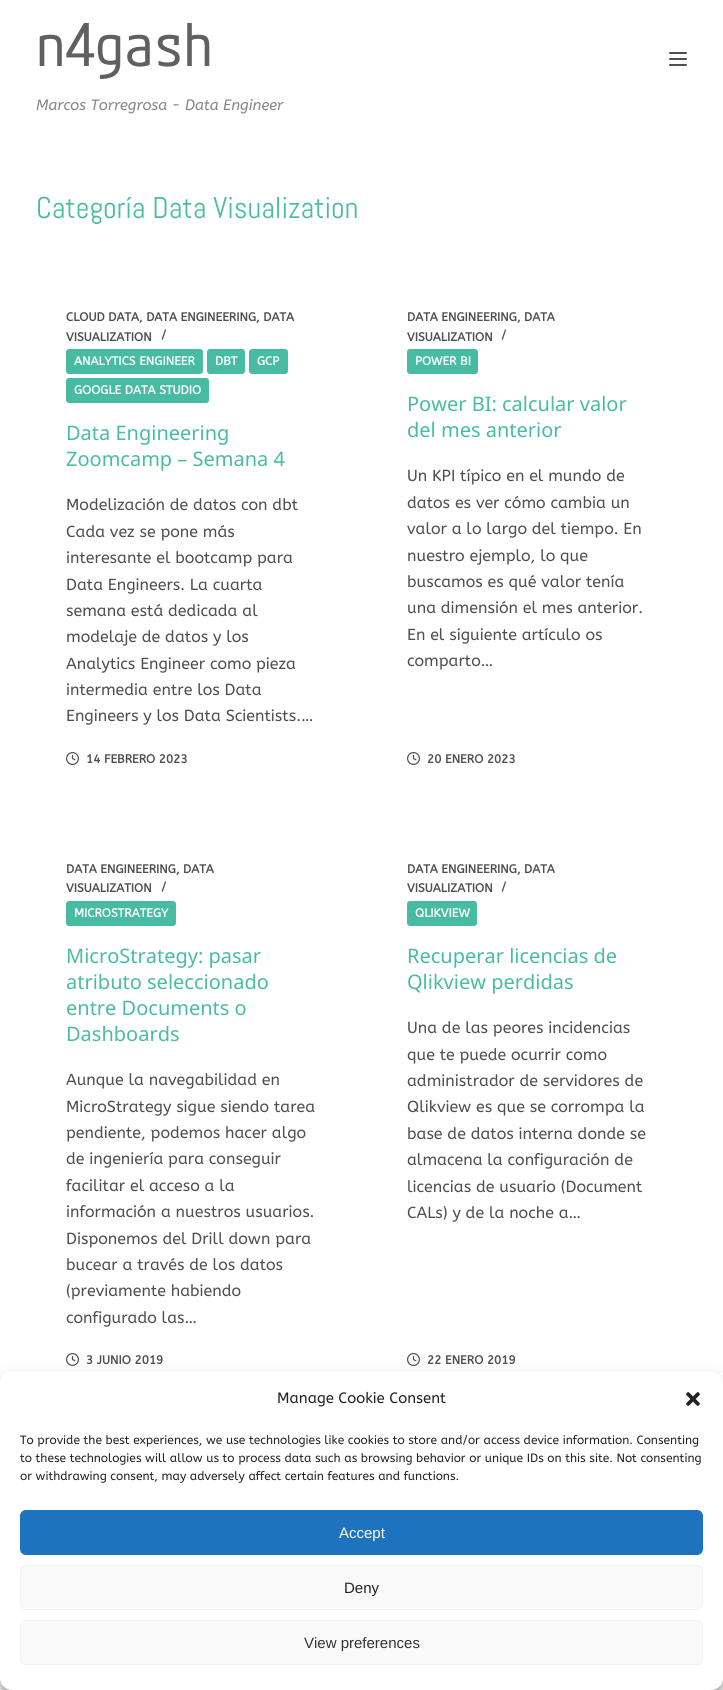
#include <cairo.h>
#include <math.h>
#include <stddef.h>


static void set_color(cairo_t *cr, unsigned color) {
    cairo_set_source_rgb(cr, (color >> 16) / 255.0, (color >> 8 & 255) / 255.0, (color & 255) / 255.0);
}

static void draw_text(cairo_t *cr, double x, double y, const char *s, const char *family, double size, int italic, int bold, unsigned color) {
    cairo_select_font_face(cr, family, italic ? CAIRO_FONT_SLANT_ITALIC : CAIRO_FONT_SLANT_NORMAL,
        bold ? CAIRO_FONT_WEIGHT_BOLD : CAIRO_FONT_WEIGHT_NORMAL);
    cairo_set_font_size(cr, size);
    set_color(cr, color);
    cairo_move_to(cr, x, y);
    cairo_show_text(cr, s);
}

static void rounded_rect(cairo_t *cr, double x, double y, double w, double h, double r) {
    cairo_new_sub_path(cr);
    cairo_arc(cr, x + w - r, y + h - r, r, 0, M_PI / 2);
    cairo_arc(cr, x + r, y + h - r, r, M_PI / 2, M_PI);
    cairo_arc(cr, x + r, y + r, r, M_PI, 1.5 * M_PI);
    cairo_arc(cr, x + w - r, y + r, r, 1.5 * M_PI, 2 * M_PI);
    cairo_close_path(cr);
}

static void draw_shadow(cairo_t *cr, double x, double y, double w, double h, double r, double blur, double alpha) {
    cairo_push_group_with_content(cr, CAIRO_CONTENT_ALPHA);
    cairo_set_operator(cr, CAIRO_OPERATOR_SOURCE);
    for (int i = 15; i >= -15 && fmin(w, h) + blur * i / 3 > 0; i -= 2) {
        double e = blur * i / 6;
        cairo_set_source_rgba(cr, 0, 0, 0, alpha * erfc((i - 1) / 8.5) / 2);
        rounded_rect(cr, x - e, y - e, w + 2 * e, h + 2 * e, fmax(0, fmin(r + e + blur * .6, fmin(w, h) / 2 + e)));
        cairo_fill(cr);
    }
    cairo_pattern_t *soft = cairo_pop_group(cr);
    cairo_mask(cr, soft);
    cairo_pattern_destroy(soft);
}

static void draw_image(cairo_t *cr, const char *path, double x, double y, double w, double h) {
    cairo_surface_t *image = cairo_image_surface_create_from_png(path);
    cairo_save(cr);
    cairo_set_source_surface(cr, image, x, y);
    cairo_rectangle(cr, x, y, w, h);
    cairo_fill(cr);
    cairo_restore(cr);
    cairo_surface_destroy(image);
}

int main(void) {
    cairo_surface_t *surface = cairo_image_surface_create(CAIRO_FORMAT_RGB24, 723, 1690);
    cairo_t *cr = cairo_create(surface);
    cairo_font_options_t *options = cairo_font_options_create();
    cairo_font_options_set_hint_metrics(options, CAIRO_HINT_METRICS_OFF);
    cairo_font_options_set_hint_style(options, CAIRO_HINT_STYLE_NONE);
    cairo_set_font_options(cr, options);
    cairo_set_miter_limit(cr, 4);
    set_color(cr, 0xFFFFFF);
    cairo_paint(cr);
    draw_text(cr, 36, 66, "n4gash", "M PLUS Code Latin", 59, 0, 0, 0x606060);
    draw_text(cr, 36, 110, "Marcos Torregrosa - Data Engineer", "ABeeZee", 15, 1, 0, 0x868686);
    set_color(cr, 0x4F4F4F);
    rounded_rect(cr, 669, 52, 18, 2, 1);
    cairo_fill(cr);
    rounded_rect(cr, 669, 58, 18, 2, 1);
    cairo_fill(cr);
    rounded_rect(cr, 669, 64, 18, 2, 1);
    cairo_fill(cr);
    draw_text(cr, 36, 218, "Categoría Data Visualization", "Abel", 30, 0, 0, 0x48BCA2);
    draw_text(cr, 66, 321, "CLOUD DATA, DATA ENGINEERING, DATA", "ABeeZee", 12, 0, 1, 0x4F4F4F);
    draw_text(cr, 66, 341, "VISUALIZATION", "ABeeZee", 12, 0, 1, 0x4F4F4F);
    draw_text(cr, 161, 339, "/", "ABeeZee", 12, 0, 1, 0x4F4F4F);
    set_color(cr, 0x48BCA2);
    rounded_rect(cr, 66, 349, 137, 25, 3);
    cairo_fill(cr);
    draw_text(cr, 74, 365, "ANALYTICS ENGINEER", "ABeeZee", 12, 0, 1, 0xFFFFFF);
    set_color(cr, 0x48BCA2);
    rounded_rect(cr, 207, 349, 38, 25, 3);
    cairo_fill(cr);
    draw_text(cr, 215, 365, "DBT", "ABeeZee", 12, 0, 1, 0xFFFFFF);
    set_color(cr, 0x48BCA2);
    rounded_rect(cr, 249, 349, 39, 25, 3);
    cairo_fill(cr);
    draw_text(cr, 257, 365, "GCP", "ABeeZee", 12, 0, 1, 0xFFFFFF);
    set_color(cr, 0x48BCA2);
    rounded_rect(cr, 66, 378, 143, 25, 3);
    cairo_fill(cr);
    draw_text(cr, 74, 394, "GOOGLE DATA STUDIO", "ABeeZee", 12, 0, 1, 0xFFFFFF);
    draw_text(cr, 66, 440, "Data Engineering", "Noto Sans Tai Viet", 20, 0, 0, 0x48BCA2);
    draw_text(cr, 66, 466, "Zoomcamp – Semana 4", "Noto Sans Tai Viet", 20, 0, 0, 0x48BCA2);
    draw_text(cr, 66, 510, "Modelización de datos con dbt", "ABeeZee", 16, 0, 0, 0x4F4F4F);
    draw_text(cr, 66, 537, "Cada vez se pone más", "ABeeZee", 16, 0, 0, 0x4F4F4F);
    draw_text(cr, 66, 563, "interesante el bootcamp para", "ABeeZee", 16, 0, 0, 0x4F4F4F);
    draw_text(cr, 66, 590, "Data Engineers. La cuarta", "ABeeZee", 16, 0, 0, 0x4F4F4F);
    draw_text(cr, 66, 616, "semana está dedicada al", "ABeeZee", 16, 0, 0, 0x4F4F4F);
    draw_text(cr, 66, 642, "modelaje de datos y los", "ABeeZee", 16, 0, 0, 0x4F4F4F);
    draw_text(cr, 66, 669, "Analytics Engineer como pieza", "ABeeZee", 16, 0, 0, 0x4F4F4F);
    draw_text(cr, 66, 695, "intermedia entre los Data", "ABeeZee", 16, 0, 0, 0x4F4F4F);
    draw_text(cr, 66, 721, "Engineers y los Data Scientists.…", "ABeeZee", 16, 0, 0, 0x4F4F4F);
    draw_image(cr, "assets/img1.png", 66, 752, 13, 13);
    draw_text(cr, 86, 763, "14 FEBRERO 2023", "ABeeZee", 12, 0, 1, 0x4F4F4F);
    draw_text(cr, 407, 321, "DATA ENGINEERING, DATA", "ABeeZee", 12, 0, 1, 0x4F4F4F);
    draw_text(cr, 407, 341, "VISUALIZATION", "ABeeZee", 12, 0, 1, 0x4F4F4F);
    draw_text(cr, 501, 339, "/", "ABeeZee", 12, 0, 1, 0x4F4F4F);
    set_color(cr, 0x48BCA2);
    rounded_rect(cr, 407, 349, 71, 25, 3);
    cairo_fill(cr);
    draw_text(cr, 415, 365, "POWER BI", "ABeeZee", 12, 0, 1, 0xFFFFFF);
    draw_text(cr, 407, 411, "Power BI: calcular valor", "Noto Sans Tai Viet", 20, 0, 0, 0x48BCA2);
    draw_text(cr, 407, 437, "del mes anterior", "Noto Sans Tai Viet", 20, 0, 0, 0x48BCA2);
    draw_text(cr, 407, 481, "Un KPI típico en el mundo de", "ABeeZee", 16, 0, 0, 0x4F4F4F);
    draw_text(cr, 407, 508, "datos es ver cómo cambia un", "ABeeZee", 16, 0, 0, 0x4F4F4F);
    draw_text(cr, 407, 534, "valor a lo largo del tiempo. En", "ABeeZee", 16, 0, 0, 0x4F4F4F);
    draw_text(cr, 407, 561, "nuestro ejemplo, lo que", "ABeeZee", 16, 0, 0, 0x4F4F4F);
    draw_text(cr, 407, 587, "buscamos es qué valor tenía", "ABeeZee", 16, 0, 0, 0x4F4F4F);
    draw_text(cr, 407, 613, "una dimensión el mes anterior.", "ABeeZee", 16, 0, 0, 0x4F4F4F);
    draw_text(cr, 407, 640, "En el siguiente artículo os", "ABeeZee", 16, 0, 0, 0x4F4F4F);
    draw_text(cr, 407, 666, "comparto…", "ABeeZee", 16, 0, 0, 0x4F4F4F);
    draw_image(cr, "assets/img1.png", 407, 752, 13, 13);
    draw_text(cr, 427, 763, "20 ENERO 2023", "ABeeZee", 12, 0, 1, 0x4F4F4F);
    draw_text(cr, 66, 873, "DATA ENGINEERING, DATA", "ABeeZee", 12, 0, 1, 0x4F4F4F);
    draw_text(cr, 66, 892, "VISUALIZATION", "ABeeZee", 12, 0, 1, 0x4F4F4F);
    draw_text(cr, 161, 891, "/", "ABeeZee", 12, 0, 1, 0x4F4F4F);
    set_color(cr, 0x48BCA2);
    rounded_rect(cr, 66, 901, 110, 25, 3);
    cairo_fill(cr);
    draw_text(cr, 74, 917, "MICROSTRATEGY", "ABeeZee", 12, 0, 1, 0xFFFFFF);
    draw_text(cr, 66, 963, "MicroStrategy: pasar", "Noto Sans Tai Viet", 20, 0, 0, 0x48BCA2);
    draw_text(cr, 66, 989, "atributo seleccionado", "Noto Sans Tai Viet", 20, 0, 0, 0x48BCA2);
    draw_text(cr, 66, 1015, "entre Documents o", "Noto Sans Tai Viet", 20, 0, 0, 0x48BCA2);
    draw_text(cr, 66, 1041, "Dashboards", "Noto Sans Tai Viet", 20, 0, 0, 0x48BCA2);
    draw_text(cr, 66, 1085, "Aunque la navegabilidad en", "ABeeZee", 16, 0, 0, 0x4F4F4F);
    draw_text(cr, 66, 1112, "MicroStrategy sigue siendo tarea", "ABeeZee", 16, 0, 0, 0x4F4F4F);
    draw_text(cr, 66, 1138, "pendiente, podemos hacer algo", "ABeeZee", 16, 0, 0, 0x4F4F4F);
    draw_text(cr, 66, 1164, "de ingeniería para conseguir", "ABeeZee", 16, 0, 0, 0x4F4F4F);
    draw_text(cr, 66, 1191, "facilitar el acceso a la", "ABeeZee", 16, 0, 0, 0x4F4F4F);
    draw_text(cr, 66, 1217, "información a nuestros usuarios.", "ABeeZee", 16, 0, 0, 0x4F4F4F);
    draw_text(cr, 66, 1244, "Disponemos del Drill down para", "ABeeZee", 16, 0, 0, 0x4F4F4F);
    draw_text(cr, 66, 1270, "bucear a través de los datos", "ABeeZee", 16, 0, 0, 0x4F4F4F);
    draw_text(cr, 66, 1296, "(previamente habiendo", "ABeeZee", 16, 0, 0, 0x4F4F4F);
    draw_text(cr, 66, 1323, "configurado las…", "ABeeZee", 16, 0, 0, 0x4F4F4F);
    draw_image(cr, "assets/img1.png", 66, 1353, 13, 13);
    draw_text(cr, 86, 1364, "3 JUNIO 2019", "ABeeZee", 12, 0, 1, 0x4F4F4F);
    draw_text(cr, 407, 873, "DATA ENGINEERING, DATA", "ABeeZee", 12, 0, 1, 0x4F4F4F);
    draw_text(cr, 407, 892, "VISUALIZATION", "ABeeZee", 12, 0, 1, 0x4F4F4F);
    draw_text(cr, 501, 891, "/", "ABeeZee", 12, 0, 1, 0x4F4F4F);
    set_color(cr, 0x48BCA2);
    rounded_rect(cr, 407, 901, 70, 25, 3);
    cairo_fill(cr);
    draw_text(cr, 415, 917, "QLIKVIEW", "ABeeZee", 12, 0, 1, 0xFFFFFF);
    draw_text(cr, 407, 963, "Recuperar licencias de", "Noto Sans Tai Viet", 20, 0, 0, 0x48BCA2);
    draw_text(cr, 407, 989, "Qlikview perdidas", "Noto Sans Tai Viet", 20, 0, 0, 0x48BCA2);
    draw_text(cr, 407, 1033, "Una de las peores incidencias", "ABeeZee", 16, 0, 0, 0x4F4F4F);
    draw_text(cr, 407, 1060, "que te puede ocurrir como", "ABeeZee", 16, 0, 0, 0x4F4F4F);
    draw_text(cr, 407, 1086, "administrador de servidores de", "ABeeZee", 16, 0, 0, 0x4F4F4F);
    draw_text(cr, 407, 1112, "Qlikview es que se corrompa la", "ABeeZee", 16, 0, 0, 0x4F4F4F);
    draw_text(cr, 407, 1139, "base de datos interna donde se", "ABeeZee", 16, 0, 0, 0x4F4F4F);
    draw_text(cr, 407, 1165, "almacena la configuración de", "ABeeZee", 16, 0, 0, 0x4F4F4F);
    draw_text(cr, 407, 1192, "licencias de usuario (Document", "ABeeZee", 16, 0, 0, 0x4F4F4F);
    draw_text(cr, 407, 1218, "CALs) y de la noche a…", "ABeeZee", 16, 0, 0, 0x4F4F4F);
    draw_image(cr, "assets/img1.png", 407, 1353, 13, 13);
    draw_text(cr, 427, 1364, "22 ENERO 2019", "ABeeZee", 12, 0, 1, 0x4F4F4F);
    set_color(cr, 0x000000);
    draw_shadow(cr, 0, 1377, 723, 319, 12, 3, 0.23);
    draw_shadow(cr, 0, 1381, 723, 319, 12, 10, 0.19);
    set_color(cr, 0xFFFFFF);
    rounded_rect(cr, 0, 1371, 723, 319, 12);
    cairo_fill(cr);
    draw_text(cr, 277, 1403, "Manage Cookie Consent", "ABeeZee", 15, 0, 0, 0x222222);
    draw_image(cr, "assets/img2.png", 686, 1392, 14, 14);
    draw_text(cr, 20, 1444, "To provide the best experiences, we use technologies like cookies to store and/or access device information. Consenting", "ABeeZee", 12, 0, 0, 0x222222);
    draw_text(cr, 20, 1462, "to these technologies will allow us to process data such as browsing behavior or unique IDs on this site. Not consenting", "ABeeZee", 12, 0, 0, 0x222222);
    draw_text(cr, 20, 1480, "or withdrawing consent, may adversely affect certain features and functions.", "ABeeZee", 12, 0, 0, 0x222222);
    set_color(cr, 0x1E73BE);
    rounded_rect(cr, 20.5, 1510.5, 682, 44, 5.5);
    cairo_fill_preserve(cr);
    cairo_set_line_width(cr, 1);
    cairo_stroke(cr);
    draw_text(cr, 339, 1538, "Accept", "Liberation Sans", 15, 0, 0, 0xFFFFFF);
    set_color(cr, 0xF9F9F9);
    rounded_rect(cr, 20.5, 1565.5, 682, 44, 5.5);
    cairo_fill_preserve(cr);
    set_color(cr, 0xF2F2F2);
    cairo_stroke(cr);
    draw_text(cr, 344, 1593, "Deny", "Liberation Sans", 15, 0, 0, 0x222222);
    set_color(cr, 0xF9F9F9);
    rounded_rect(cr, 20.5, 1620.5, 682, 44, 5.5);
    cairo_fill_preserve(cr);
    set_color(cr, 0xF2F2F2);
    cairo_stroke(cr);
    draw_text(cr, 304, 1648, "View preferences", "Liberation Sans", 15, 0, 0, 0x333333);
    cairo_surface_write_to_png(surface, "output.png");
    cairo_font_options_destroy(options);
    cairo_destroy(cr);
    cairo_surface_destroy(surface);
    return 0;
}
